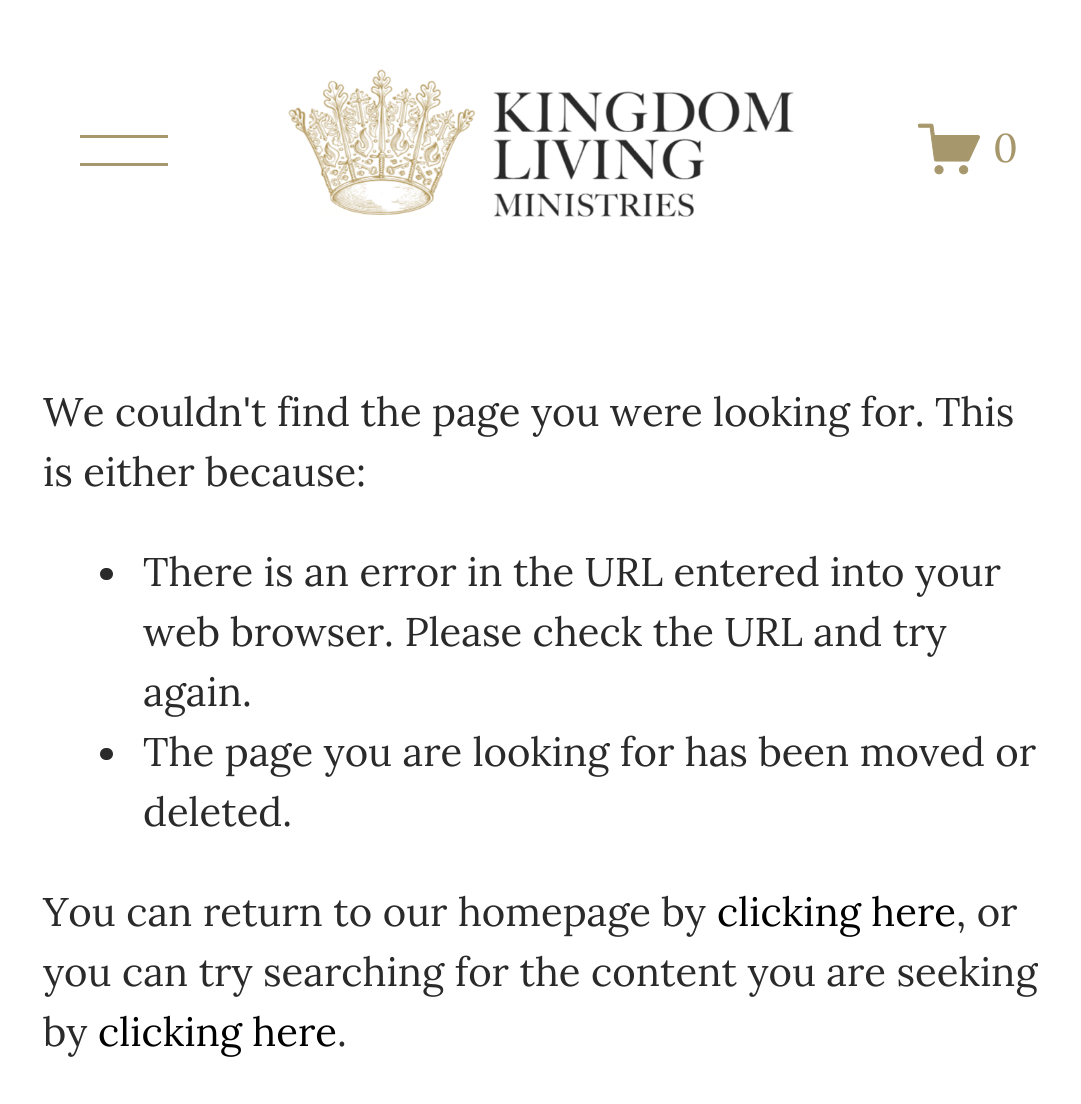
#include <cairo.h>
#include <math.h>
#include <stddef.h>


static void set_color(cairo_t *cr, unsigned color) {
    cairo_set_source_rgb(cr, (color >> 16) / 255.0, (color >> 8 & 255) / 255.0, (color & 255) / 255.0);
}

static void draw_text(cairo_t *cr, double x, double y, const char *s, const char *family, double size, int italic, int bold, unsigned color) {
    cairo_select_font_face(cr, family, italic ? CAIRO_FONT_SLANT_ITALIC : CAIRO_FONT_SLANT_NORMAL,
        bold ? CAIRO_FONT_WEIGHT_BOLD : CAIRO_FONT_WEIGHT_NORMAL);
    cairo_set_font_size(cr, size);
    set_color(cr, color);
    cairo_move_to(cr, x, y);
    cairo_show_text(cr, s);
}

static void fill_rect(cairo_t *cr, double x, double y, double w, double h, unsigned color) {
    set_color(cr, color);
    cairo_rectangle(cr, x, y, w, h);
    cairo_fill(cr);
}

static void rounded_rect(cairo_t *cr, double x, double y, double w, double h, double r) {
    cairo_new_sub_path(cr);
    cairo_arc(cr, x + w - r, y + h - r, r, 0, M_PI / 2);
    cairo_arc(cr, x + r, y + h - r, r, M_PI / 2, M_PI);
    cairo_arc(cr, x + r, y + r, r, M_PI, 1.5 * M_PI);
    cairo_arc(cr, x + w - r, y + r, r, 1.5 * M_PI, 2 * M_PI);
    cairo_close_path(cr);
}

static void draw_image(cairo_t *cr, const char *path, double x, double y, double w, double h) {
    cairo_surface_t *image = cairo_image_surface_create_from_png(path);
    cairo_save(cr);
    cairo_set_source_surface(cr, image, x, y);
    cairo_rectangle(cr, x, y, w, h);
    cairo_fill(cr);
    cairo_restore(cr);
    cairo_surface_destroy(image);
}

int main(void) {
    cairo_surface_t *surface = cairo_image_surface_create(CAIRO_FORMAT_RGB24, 1081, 1104);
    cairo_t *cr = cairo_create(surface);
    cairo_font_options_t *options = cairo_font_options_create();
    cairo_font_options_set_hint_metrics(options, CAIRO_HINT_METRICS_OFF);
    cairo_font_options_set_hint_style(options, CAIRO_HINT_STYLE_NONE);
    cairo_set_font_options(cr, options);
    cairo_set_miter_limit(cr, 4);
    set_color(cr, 0xFFFFFF);
    cairo_paint(cr);
    fill_rect(cr, 80, 135, 88, 3, 0xA7976C);
    fill_rect(cr, 80, 163, 88, 3, 0xA7976C);
    draw_image(cr, "assets/img1.png", 288, 69, 506, 148);
    draw_image(cr, "assets/img2.png", 918, 123, 62, 52);
    draw_text(cr, 993, 162, "0", "Lora", 40, 0, 0, 0xA7976C);
    draw_text(cr, 43, 426, "We couldn't find the page you were looking for. This", "Lora", 40, 0, 0, 0x2A2A2A);
    draw_text(cr, 43, 486, "is either because:", "Lora", 40, 0, 0, 0x2A2A2A);
    rounded_rect(cr, 100, 568, 13, 12, 6);
    cairo_fill(cr);
    draw_text(cr, 143, 586, "There is an error in the URL entered into your", "Lora", 40, 0, 0, 0x2A2A2A);
    draw_text(cr, 143, 646, "web browser. Please check the URL and try", "Lora", 40, 0, 0, 0x2A2A2A);
    draw_text(cr, 143, 706, "again.", "Lora", 40, 0, 0, 0x2A2A2A);
    rounded_rect(cr, 100, 748, 13, 12, 6);
    cairo_fill(cr);
    draw_text(cr, 143, 766, "The page you are looking for has been moved or", "Lora", 40, 0, 0, 0x2A2A2A);
    draw_text(cr, 143, 826, "deleted.", "Lora", 40, 0, 0, 0x2A2A2A);
    draw_text(cr, 43, 926, "You can return to our homepage by", "Lora", 40, 0, 0, 0x2A2A2A);
    draw_text(cr, 717, 926, "clicking here", "Lora", 40, 0, 0, 0x000000);
    draw_text(cr, 956, 926, ", or", "Lora", 40, 0, 0, 0x2A2A2A);
    draw_text(cr, 43, 986, "you can try searching for the content you are seeking", "Lora", 40, 0, 0, 0x2A2A2A);
    draw_text(cr, 43, 1046, "by", "Lora", 40, 0, 0, 0x2A2A2A);
    draw_text(cr, 98, 1046, "clicking here", "Lora", 40, 0, 0, 0x000000);
    draw_text(cr, 337, 1046, ".", "Lora", 40, 0, 0, 0x2A2A2A);
    cairo_surface_write_to_png(surface, "output.png");
    cairo_font_options_destroy(options);
    cairo_destroy(cr);
    cairo_surface_destroy(surface);
    return 0;
}
